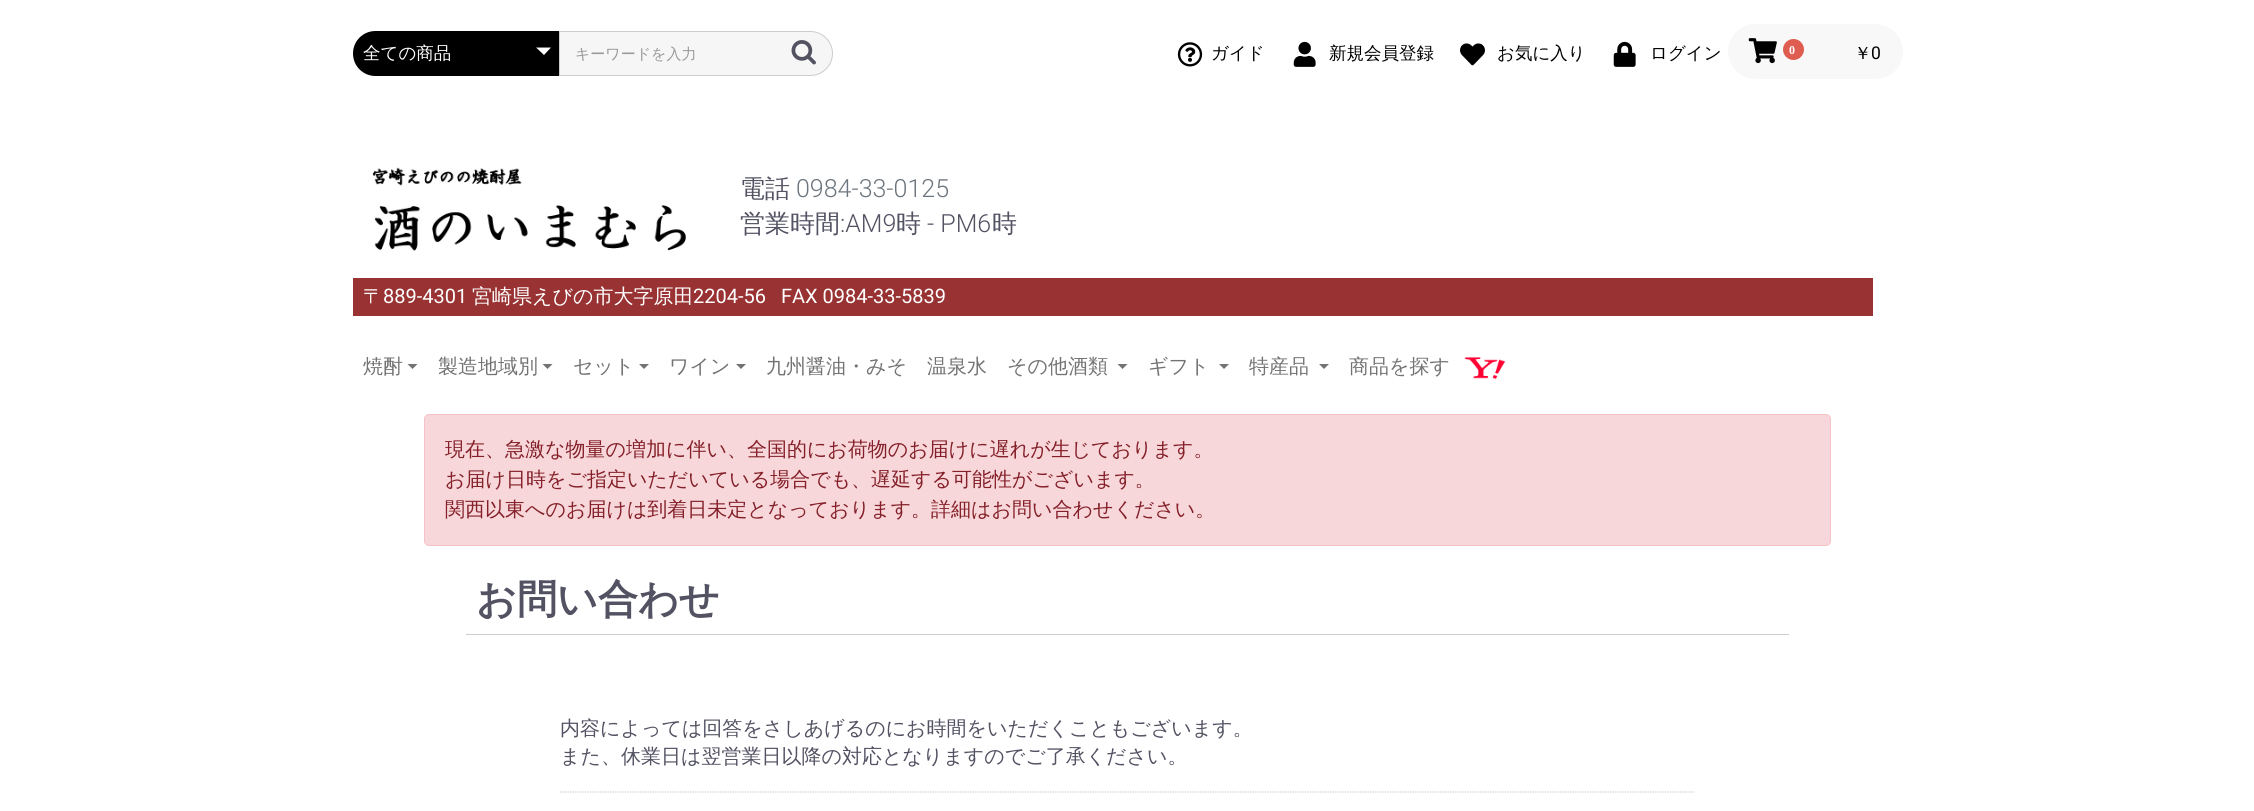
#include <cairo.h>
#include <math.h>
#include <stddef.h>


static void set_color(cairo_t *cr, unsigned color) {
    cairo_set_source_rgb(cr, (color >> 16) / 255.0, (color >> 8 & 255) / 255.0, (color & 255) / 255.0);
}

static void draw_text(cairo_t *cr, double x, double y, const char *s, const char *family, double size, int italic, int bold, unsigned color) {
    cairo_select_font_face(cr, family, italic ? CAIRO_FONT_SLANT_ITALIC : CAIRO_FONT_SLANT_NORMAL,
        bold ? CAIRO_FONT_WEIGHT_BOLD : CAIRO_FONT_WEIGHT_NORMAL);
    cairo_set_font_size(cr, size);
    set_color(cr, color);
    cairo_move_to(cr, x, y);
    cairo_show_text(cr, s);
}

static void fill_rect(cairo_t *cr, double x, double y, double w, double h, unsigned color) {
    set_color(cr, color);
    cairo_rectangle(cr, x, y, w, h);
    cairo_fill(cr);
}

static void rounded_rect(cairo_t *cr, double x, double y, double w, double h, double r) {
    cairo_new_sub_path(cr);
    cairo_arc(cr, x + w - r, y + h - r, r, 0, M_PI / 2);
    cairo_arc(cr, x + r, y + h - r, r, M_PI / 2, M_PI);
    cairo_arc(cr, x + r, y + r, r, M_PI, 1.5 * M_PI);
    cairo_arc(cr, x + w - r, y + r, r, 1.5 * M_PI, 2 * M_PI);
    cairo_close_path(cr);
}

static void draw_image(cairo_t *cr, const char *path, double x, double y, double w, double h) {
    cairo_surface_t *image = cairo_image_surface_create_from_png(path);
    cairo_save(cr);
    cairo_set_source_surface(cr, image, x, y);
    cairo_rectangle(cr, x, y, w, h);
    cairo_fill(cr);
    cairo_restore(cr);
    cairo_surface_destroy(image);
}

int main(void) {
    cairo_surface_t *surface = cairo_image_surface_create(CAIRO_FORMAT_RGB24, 2254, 811);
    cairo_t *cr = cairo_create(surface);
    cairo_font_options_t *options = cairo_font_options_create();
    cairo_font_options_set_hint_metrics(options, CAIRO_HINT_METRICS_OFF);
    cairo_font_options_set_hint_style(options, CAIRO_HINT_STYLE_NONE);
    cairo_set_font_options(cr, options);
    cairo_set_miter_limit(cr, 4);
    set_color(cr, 0xFFFFFF);
    cairo_paint(cr);
    set_color(cr, 0x000000);
    cairo_new_path(cr);
    cairo_move_to(cr, 375.5, 31);
    cairo_line_to(cr, 559, 31);
    cairo_line_to(cr, 559, 76);
    cairo_line_to(cr, 375.5, 76);
    cairo_curve_to(cr, 363, 76, 353, 66, 353, 53.5);
    cairo_curve_to(cr, 353, 41, 363, 31, 375.5, 31);
    cairo_close_path(cr);
    cairo_fill(cr);
    draw_text(cr, 363, 59, "全ての商品", "WenQuanYi Zen Hei Medium", 17.5, 0, 0, 0xFFFFFF);
    cairo_new_path(cr);
    cairo_move_to(cr, 536, 47.5);
    cairo_line_to(cr, 551, 47.5);
    cairo_line_to(cr, 544, 55);
    cairo_close_path(cr);
    cairo_fill(cr);
    set_color(cr, 0xF6F6F6);
    cairo_new_path(cr);
    cairo_move_to(cr, 559.5, 31.5);
    cairo_line_to(cr, 810.5, 31.5);
    cairo_curve_to(cr, 822.5, 31.5, 832.5, 41.5, 832.5, 53.5);
    cairo_curve_to(cr, 832.5, 65.5, 822.5, 75.5, 810.5, 75.5);
    cairo_line_to(cr, 559.5, 75.5);
    cairo_close_path(cr);
    cairo_fill_preserve(cr);
    set_color(cr, 0xCCCCCC);
    cairo_set_line_width(cr, 1);
    cairo_stroke(cr);
    draw_text(cr, 575, 59, "キーワードを入力", "WenQuanYi Zen Hei Medium", 15, 0, 0, 0x999999);
    draw_image(cr, "assets/img1.png", 791, 40, 25, 25);
    draw_image(cr, "assets/img2.png", 1177, 42, 26, 25);
    draw_text(cr, 1211, 59, "ガイド", "WenQuanYi Zen Hei Medium", 17.5, 0, 0, 0x000000);
    draw_image(cr, "assets/img3.png", 1293, 41, 23, 26);
    draw_text(cr, 1329, 59, "新規会員登録", "WenQuanYi Zen Hei Medium", 17.5, 0, 0, 0x000000);
    draw_image(cr, "assets/img4.png", 1460, 43, 25, 23);
    draw_text(cr, 1497, 59, "お気に入り", "WenQuanYi Zen Hei Medium", 17.5, 0, 0, 0x000000);
    draw_image(cr, "assets/img5.png", 1613, 41, 23, 26);
    draw_text(cr, 1650, 59, "ログイン", "WenQuanYi Zen Hei Medium", 17.5, 0, 0, 0x000000);
    set_color(cr, 0xF8F8F8);
    rounded_rect(cr, 1728, 24, 175, 55, 27.5);
    cairo_fill(cr);
    draw_image(cr, "assets/img6.png", 1748, 38, 29, 26);
    set_color(cr, 0xDE5D50);
    cairo_arc(cr, 1793.5, 49.5, 10.5, 0, 2 * M_PI);
    cairo_fill(cr);
    draw_text(cr, 1789, 54, "0", "Liberation Serif", 12, 0, 1, 0xFFFFFF);
    draw_text(cr, 1854, 59, "￥", "WenQuanYi Zen Hei Medium", 17.5, 0, 0, 0x000000);
    draw_text(cr, 1871, 59, "0", "Roboto", 17.5, 0, 0, 0x000000);
    draw_image(cr, "assets/img7.png", 372, 167, 314, 84);
    draw_text(cr, 740, 197, "電話", "WenQuanYi Zen Hei Medium", 25, 0, 0, 0x525263);
    draw_text(cr, 796, 197, "0984-33-0125", "Roboto Light", 25, 0, 0, 0x6C757D);
    draw_text(cr, 740, 232, "営業時間", "WenQuanYi Zen Hei Medium", 25, 0, 0, 0x525263);
    draw_text(cr, 840, 232, ":AM9", "Roboto Light", 25, 0, 0, 0x525263);
    draw_text(cr, 896, 232, "時", "WenQuanYi Zen Hei Medium", 25, 0, 0, 0x525263);
    draw_text(cr, 927, 232, "- PM6", "Roboto Light", 25, 0, 0, 0x525263);
    draw_text(cr, 992, 232, "時", "WenQuanYi Zen Hei Medium", 25, 0, 0, 0x525263);
    fill_rect(cr, 353, 278, 1520, 38, 0x993333);
    draw_text(cr, 363, 303, "〒", "WenQuanYi Zen Hei Medium", 20, 0, 0, 0xFFFFFF);
    draw_text(cr, 383, 303, "889-4301", "Roboto", 20, 0, 0, 0xFFFFFF);
    draw_text(cr, 472, 303, "宮崎県えびの市大字原田", "WenQuanYi Zen Hei Medium", 20, 0, 0, 0xFFFFFF);
    draw_text(cr, 693, 303, "2204-56", "Roboto", 20, 0, 0, 0xFFFFFF);
    draw_text(cr, 781, 303, "FAX 0984-33-5839", "Roboto", 20, 0, 0, 0xFFFFFF);
    draw_text(cr, 363, 373, "焼酎", "WenQuanYi Zen Hei Medium", 20, 0, 0, 0x737373);
    cairo_new_path(cr);
    cairo_move_to(cr, 407.5, 364);
    cairo_line_to(cr, 417.5, 364);
    cairo_line_to(cr, 412.5, 369);
    cairo_close_path(cr);
    cairo_fill(cr);
    draw_text(cr, 438, 373, "製造地域別", "WenQuanYi Zen Hei Medium", 20, 0, 0, 0x737373);
    cairo_new_path(cr);
    cairo_move_to(cr, 542.5, 364);
    cairo_line_to(cr, 552.5, 364);
    cairo_line_to(cr, 547.5, 369);
    cairo_close_path(cr);
    cairo_fill(cr);
    draw_text(cr, 573, 373, "セット", "WenQuanYi Zen Hei Medium", 20, 0, 0, 0x737373);
    cairo_new_path(cr);
    cairo_move_to(cr, 639, 364);
    cairo_line_to(cr, 649, 364);
    cairo_line_to(cr, 644, 369);
    cairo_close_path(cr);
    cairo_fill(cr);
    draw_text(cr, 669, 373, "ワイン", "WenQuanYi Zen Hei Medium", 20, 0, 0, 0x737373);
    cairo_new_path(cr);
    cairo_move_to(cr, 736, 364);
    cairo_line_to(cr, 746, 364);
    cairo_line_to(cr, 741, 369);
    cairo_close_path(cr);
    cairo_fill(cr);
    draw_text(cr, 766, 373, "九州醤油・みそ", "WenQuanYi Zen Hei Medium", 20, 0, 0, 0x737373);
    draw_text(cr, 927, 373, "温泉水", "WenQuanYi Zen Hei Medium", 20, 0, 0, 0x737373);
    draw_text(cr, 1007, 373, "その他酒類", "WenQuanYi Zen Hei Medium", 20, 0, 0, 0x737373);
    cairo_new_path(cr);
    cairo_move_to(cr, 1117.5, 364);
    cairo_line_to(cr, 1127.5, 364);
    cairo_line_to(cr, 1122.5, 369);
    cairo_close_path(cr);
    cairo_fill(cr);
    draw_text(cr, 1148, 373, "ギフト", "WenQuanYi Zen Hei Medium", 20, 0, 0, 0x737373);
    cairo_new_path(cr);
    cairo_move_to(cr, 1219, 364);
    cairo_line_to(cr, 1229, 364);
    cairo_line_to(cr, 1224, 369);
    cairo_close_path(cr);
    cairo_fill(cr);
    draw_text(cr, 1249, 373, "特産品", "WenQuanYi Zen Hei Medium", 20, 0, 0, 0x737373);
    cairo_new_path(cr);
    cairo_move_to(cr, 1319, 364);
    cairo_line_to(cr, 1329, 364);
    cairo_line_to(cr, 1324, 369);
    cairo_close_path(cr);
    cairo_fill(cr);
    draw_text(cr, 1349, 373, "商品を探す", "WenQuanYi Zen Hei Medium", 20, 0, 0, 0x737373);
    draw_image(cr, "assets/img8.png", 1464, 357, 42, 23);
    set_color(cr, 0xF8D7DA);
    rounded_rect(cr, 424.5, 414.5, 1406, 131, 4.5);
    cairo_fill_preserve(cr);
    set_color(cr, 0xF5C2C7);
    cairo_stroke(cr);
    draw_text(cr, 445, 456, "現在、急激な物量の増加に伴い、全国的にお荷物のお届けに遅れが生じております。", "WenQuanYi Zen Hei Medium", 20, 0, 0, 0x842029);
    draw_text(cr, 445, 486, "お届け日時をご指定いただいている場合でも、遅延する可能性がございます。", "WenQuanYi Zen Hei Medium", 20, 0, 0, 0x842029);
    draw_text(cr, 445, 516, "関西以東へのお届けは到着日未定となっております。詳細はお問い合わせください。", "WenQuanYi Zen Hei Medium", 20, 0, 0, 0x842029);
    fill_rect(cr, 466, 634, 1323, 1, 0xCCCCCC);
    draw_text(cr, 476, 613, "お問い合わせ", "WenQuanYi Zen Hei", 40, 0, 1, 0x525263);
    draw_text(cr, 560, 735, "内容によっては回答をさしあげるのにお時間をいただくこともございます。", "WenQuanYi Zen Hei Medium", 20, 0, 0, 0x525263);
    draw_text(cr, 560, 763, "また、休業日は翌営業日以降の対応となりますのでご了承ください。", "WenQuanYi Zen Hei Medium", 20, 0, 0, 0x525263);
    cairo_new_path(cr);
    cairo_move_to(cr, 560, 792);
    cairo_line_to(cr, 1695, 792);
    set_color(cr, 0xCCCCCC);
    cairo_set_line_width(cr, 1.2);
    cairo_set_dash(cr, (double[]){1.25, 1.25}, 2, 0);
    cairo_stroke(cr);
    cairo_surface_write_to_png(surface, "output.png");
    cairo_font_options_destroy(options);
    cairo_destroy(cr);
    cairo_surface_destroy(surface);
    return 0;
}
